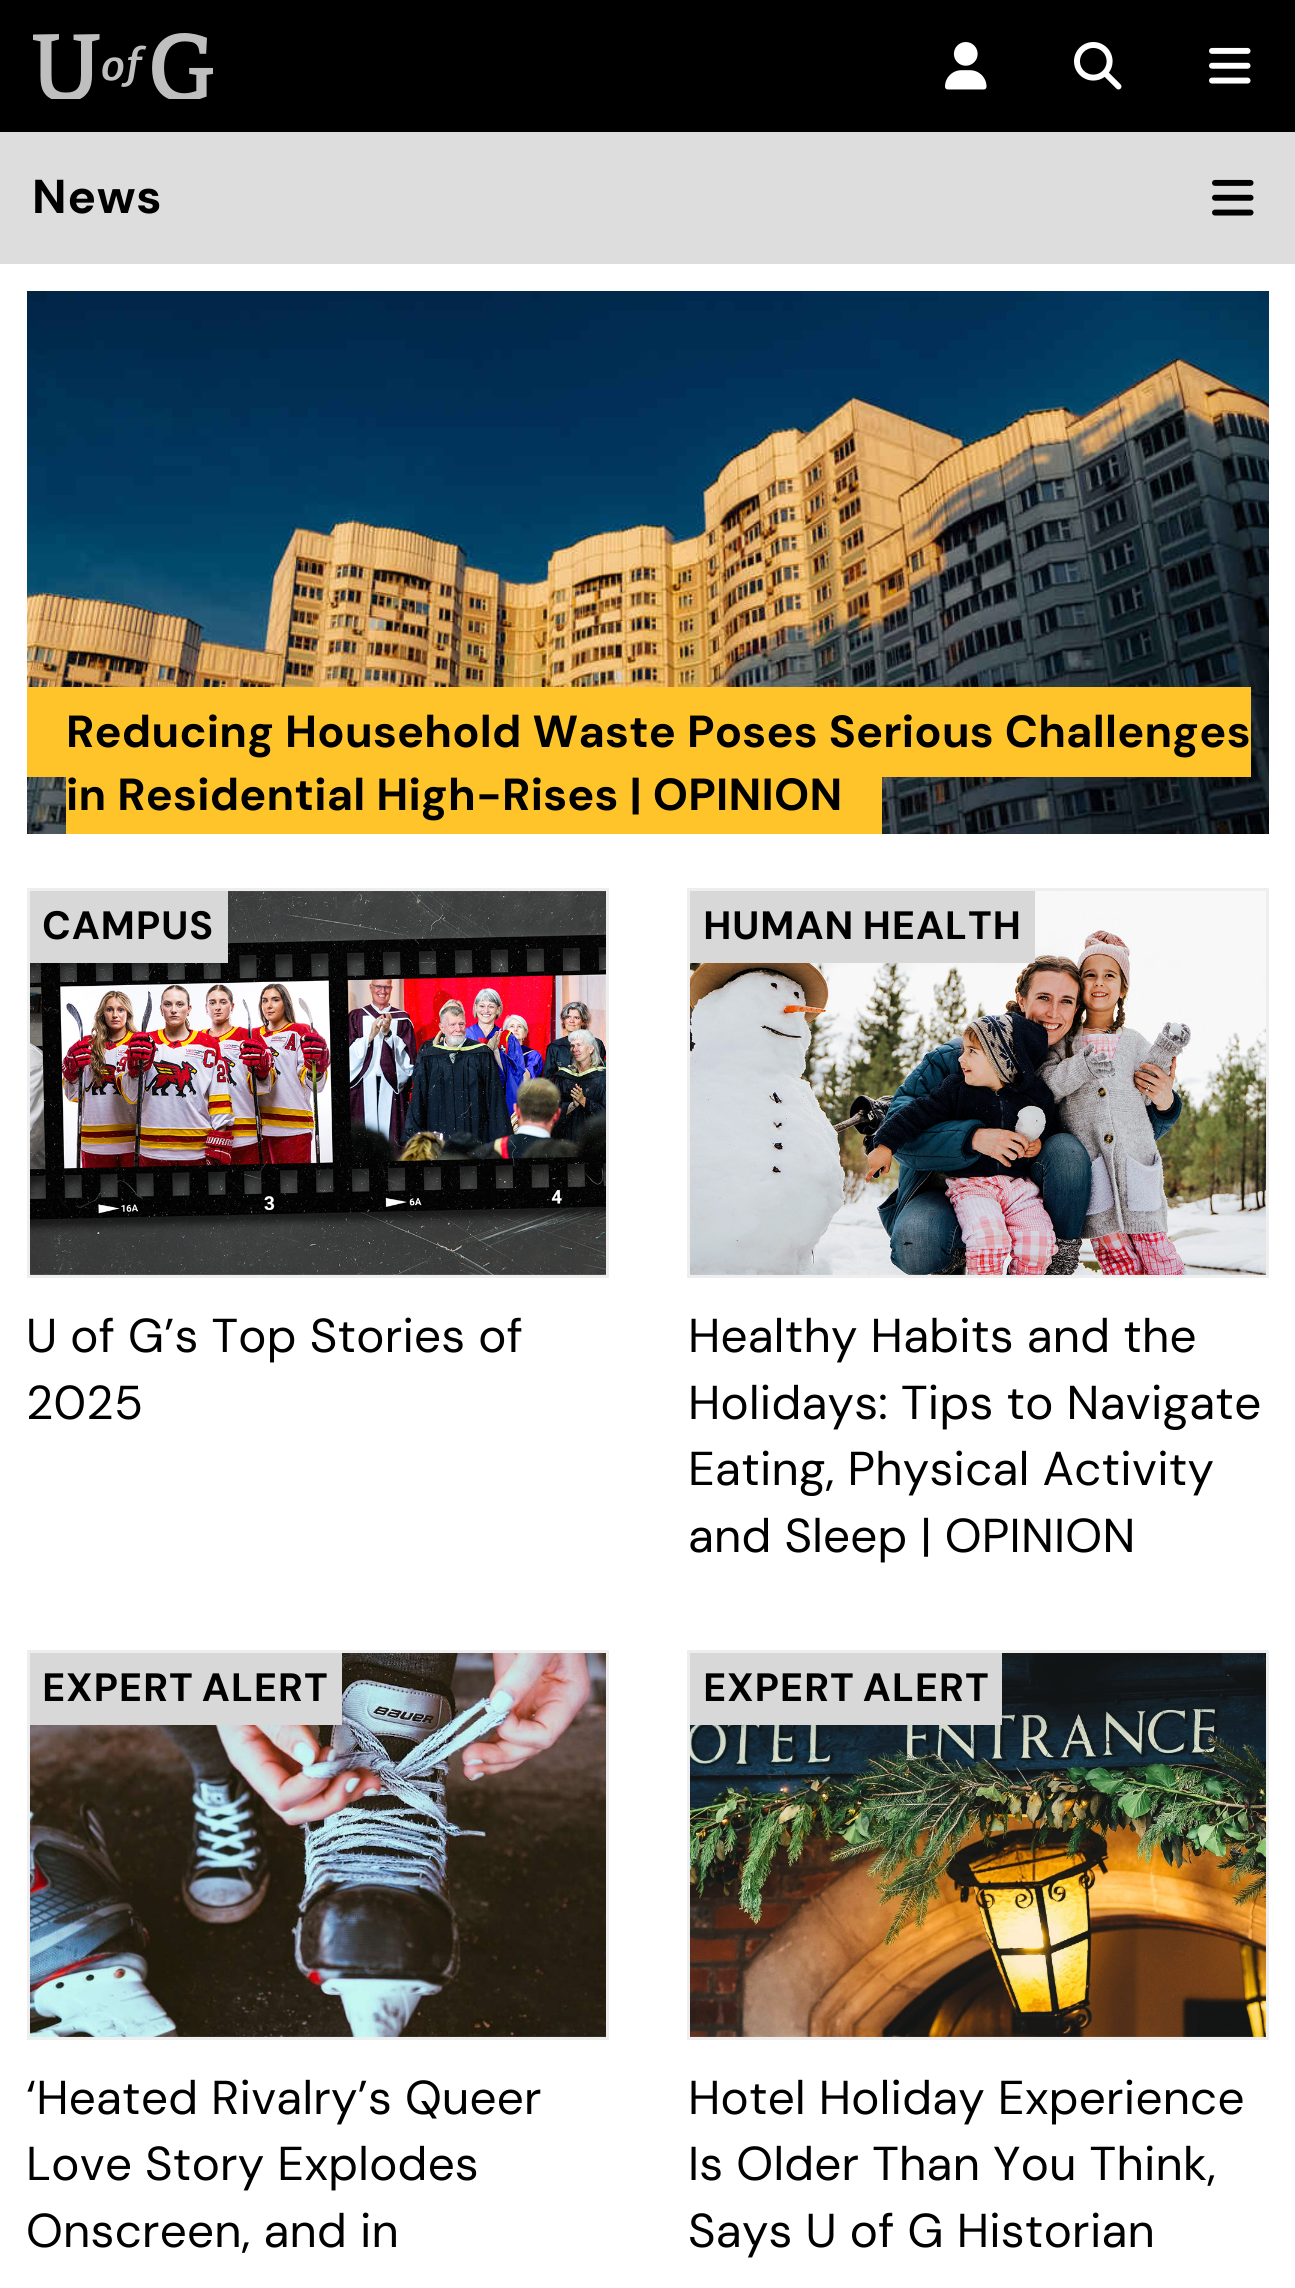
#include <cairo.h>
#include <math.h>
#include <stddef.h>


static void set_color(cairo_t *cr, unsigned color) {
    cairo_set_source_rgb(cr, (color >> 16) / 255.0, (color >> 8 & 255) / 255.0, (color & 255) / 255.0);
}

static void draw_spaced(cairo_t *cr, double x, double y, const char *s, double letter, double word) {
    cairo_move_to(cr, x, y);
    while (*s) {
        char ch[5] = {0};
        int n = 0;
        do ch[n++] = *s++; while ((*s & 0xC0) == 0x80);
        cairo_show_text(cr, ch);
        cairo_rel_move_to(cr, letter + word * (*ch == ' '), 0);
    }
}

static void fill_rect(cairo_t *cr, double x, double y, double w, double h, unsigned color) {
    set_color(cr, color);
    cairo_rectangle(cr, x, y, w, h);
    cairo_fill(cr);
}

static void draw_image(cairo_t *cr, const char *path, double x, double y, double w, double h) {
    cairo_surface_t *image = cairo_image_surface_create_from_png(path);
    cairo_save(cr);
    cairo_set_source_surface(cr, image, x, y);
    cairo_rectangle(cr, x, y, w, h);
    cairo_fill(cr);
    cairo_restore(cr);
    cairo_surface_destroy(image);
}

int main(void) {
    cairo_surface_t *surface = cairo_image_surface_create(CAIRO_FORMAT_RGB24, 1295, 2288);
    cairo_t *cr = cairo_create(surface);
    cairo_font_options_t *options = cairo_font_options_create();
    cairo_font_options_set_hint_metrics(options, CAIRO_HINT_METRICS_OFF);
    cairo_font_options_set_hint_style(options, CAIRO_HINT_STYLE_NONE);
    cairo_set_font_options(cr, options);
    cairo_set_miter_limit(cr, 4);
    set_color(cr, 0xFFFFFF);
    cairo_paint(cr);
    fill_rect(cr, 0, 0, 1295, 132, 0x000000);
    draw_image(cr, "assets/img1.png", 33, 33, 180, 66);
    draw_image(cr, "assets/img2.png", 945, 42, 42, 48);
    draw_image(cr, "assets/img3.png", 1074, 42, 48, 48);
    draw_image(cr, "assets/img4.png", 1209, 47, 42, 37);
    fill_rect(cr, 0, 132, 1295, 132, 0xDDDDDD);
    cairo_select_font_face(cr, "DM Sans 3", CAIRO_FONT_SLANT_NORMAL, CAIRO_FONT_WEIGHT_BOLD);
    cairo_set_font_size(cr, 47.5);
    set_color(cr, 0x000000);
    draw_spaced(cr, 32, 213, "News", 0.75, 0);
    draw_image(cr, "assets/img5.png", 1212, 179, 42, 37);
    draw_image(cr, "assets/img6.png", 27, 291, 1242, 543);
    fill_rect(cr, 27, 687, 1224, 90, 0xFFC429);
    cairo_select_font_face(cr, "DM Sans", CAIRO_FONT_SLANT_NORMAL, CAIRO_FONT_WEIGHT_BOLD);
    cairo_set_font_size(cr, 44.9);
    set_color(cr, 0x000000);
    draw_spaced(cr, 66, 747, "Reducing Household Waste Poses Serious Challenges", 0.25, 0);
    fill_rect(cr, 66, 777, 816, 57, 0xFFC429);
    set_color(cr, 0x000000);
    draw_spaced(cr, 66, 810, "in Residential High-Rises | OPINION", 0.25, 0);
    cairo_rectangle(cr, 28.5, 889.5, 579, 387);
    set_color(cr, 0xEEEEEE);
    cairo_set_line_width(cr, 3);
    cairo_stroke(cr);
    draw_image(cr, "assets/img7.png", 30, 891, 576, 384);
    fill_rect(cr, 30, 891, 198, 72, 0xD8D8D8);
    cairo_select_font_face(cr, "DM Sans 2", CAIRO_FONT_SLANT_NORMAL, CAIRO_FONT_WEIGHT_BOLD);
    cairo_set_font_size(cr, 39.5);
    set_color(cr, 0x000000);
    draw_spaced(cr, 42, 939, "CAMPUS", 0.75, 0);
    cairo_select_font_face(cr, "DM Sans", CAIRO_FONT_SLANT_NORMAL, CAIRO_FONT_WEIGHT_NORMAL);
    cairo_set_font_size(cr, 47.5);
    draw_spaced(cr, 26, 1352, "U of G’s Top Stories of", 0.25, 0);
    draw_spaced(cr, 26, 1419, "2025", 0.25, 0);
    cairo_rectangle(cr, 688.5, 889.5, 579, 387);
    set_color(cr, 0xEEEEEE);
    cairo_stroke(cr);
    draw_image(cr, "assets/img8.png", 690, 891, 576, 384);
    fill_rect(cr, 690, 891, 345, 72, 0xD8D8D8);
    cairo_select_font_face(cr, "DM Sans 2", CAIRO_FONT_SLANT_NORMAL, CAIRO_FONT_WEIGHT_BOLD);
    cairo_set_font_size(cr, 39.5);
    set_color(cr, 0x000000);
    draw_spaced(cr, 703, 939, "HUMAN HEALTH", 0.75, -2);
    cairo_select_font_face(cr, "DM Sans", CAIRO_FONT_SLANT_NORMAL, CAIRO_FONT_WEIGHT_NORMAL);
    cairo_set_font_size(cr, 47.5);
    draw_spaced(cr, 688, 1352, "Healthy Habits and the", 0.25, 0);
    draw_spaced(cr, 688, 1419, "Holidays: Tips to Navigate", 0.25, 0);
    draw_spaced(cr, 688, 1485, "Eating, Physical Activity", 0.25, 0);
    draw_spaced(cr, 688, 1552, "and Sleep | OPINION", 0.25, 0);
    cairo_rectangle(cr, 28.5, 1651.5, 579, 387);
    set_color(cr, 0xEEEEEE);
    cairo_stroke(cr);
    draw_image(cr, "assets/img9.png", 30, 1653, 576, 384);
    fill_rect(cr, 30, 1653, 312, 72, 0xD8D8D8);
    cairo_select_font_face(cr, "DM Sans 2", CAIRO_FONT_SLANT_NORMAL, CAIRO_FONT_WEIGHT_BOLD);
    cairo_set_font_size(cr, 39.5);
    set_color(cr, 0x000000);
    draw_spaced(cr, 42, 1701, "EXPERT ALERT", 0.75, -2);
    cairo_select_font_face(cr, "DM Sans", CAIRO_FONT_SLANT_NORMAL, CAIRO_FONT_WEIGHT_NORMAL);
    cairo_set_font_size(cr, 47.5);
    draw_spaced(cr, 26, 2114, "‘Heated Rivalry’s Queer", 0.25, 0);
    draw_spaced(cr, 26, 2180, "Love Story Explodes", 0.25, 0);
    draw_spaced(cr, 26, 2247, "Onscreen, and in", 0.25, 0);
    cairo_rectangle(cr, 688.5, 1651.5, 579, 387);
    set_color(cr, 0xEEEEEE);
    cairo_stroke(cr);
    draw_image(cr, "assets/img10.png", 690, 1653, 576, 384);
    fill_rect(cr, 690, 1653, 312, 72, 0xD8D8D8);
    cairo_select_font_face(cr, "DM Sans 2", CAIRO_FONT_SLANT_NORMAL, CAIRO_FONT_WEIGHT_BOLD);
    cairo_set_font_size(cr, 39.5);
    set_color(cr, 0x000000);
    draw_spaced(cr, 703, 1701, "EXPERT ALERT", 0.75, -2);
    cairo_select_font_face(cr, "DM Sans", CAIRO_FONT_SLANT_NORMAL, CAIRO_FONT_WEIGHT_NORMAL);
    cairo_set_font_size(cr, 47.5);
    draw_spaced(cr, 688, 2114, "Hotel Holiday Experience", 0.25, 0);
    draw_spaced(cr, 688, 2180, "Is Older Than You Think,", 0.25, 0);
    draw_spaced(cr, 688, 2247, "Says U of G Historian", 0.25, 0);
    cairo_surface_write_to_png(surface, "output.png");
    cairo_font_options_destroy(options);
    cairo_destroy(cr);
    cairo_surface_destroy(surface);
    return 0;
}
